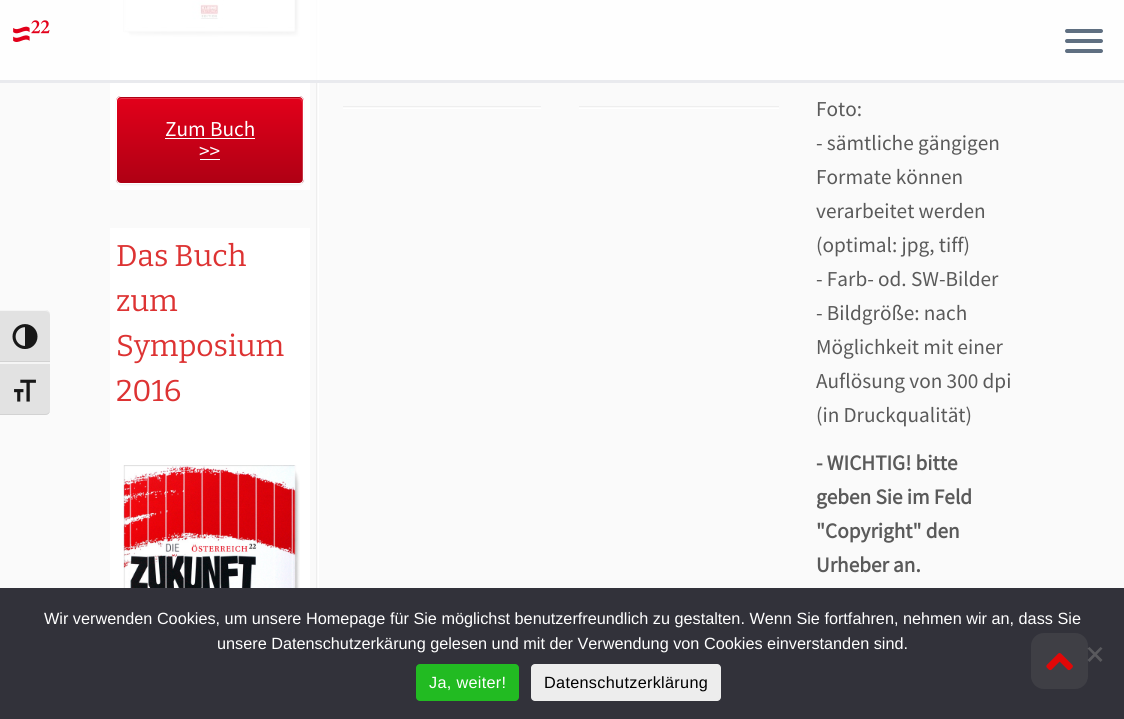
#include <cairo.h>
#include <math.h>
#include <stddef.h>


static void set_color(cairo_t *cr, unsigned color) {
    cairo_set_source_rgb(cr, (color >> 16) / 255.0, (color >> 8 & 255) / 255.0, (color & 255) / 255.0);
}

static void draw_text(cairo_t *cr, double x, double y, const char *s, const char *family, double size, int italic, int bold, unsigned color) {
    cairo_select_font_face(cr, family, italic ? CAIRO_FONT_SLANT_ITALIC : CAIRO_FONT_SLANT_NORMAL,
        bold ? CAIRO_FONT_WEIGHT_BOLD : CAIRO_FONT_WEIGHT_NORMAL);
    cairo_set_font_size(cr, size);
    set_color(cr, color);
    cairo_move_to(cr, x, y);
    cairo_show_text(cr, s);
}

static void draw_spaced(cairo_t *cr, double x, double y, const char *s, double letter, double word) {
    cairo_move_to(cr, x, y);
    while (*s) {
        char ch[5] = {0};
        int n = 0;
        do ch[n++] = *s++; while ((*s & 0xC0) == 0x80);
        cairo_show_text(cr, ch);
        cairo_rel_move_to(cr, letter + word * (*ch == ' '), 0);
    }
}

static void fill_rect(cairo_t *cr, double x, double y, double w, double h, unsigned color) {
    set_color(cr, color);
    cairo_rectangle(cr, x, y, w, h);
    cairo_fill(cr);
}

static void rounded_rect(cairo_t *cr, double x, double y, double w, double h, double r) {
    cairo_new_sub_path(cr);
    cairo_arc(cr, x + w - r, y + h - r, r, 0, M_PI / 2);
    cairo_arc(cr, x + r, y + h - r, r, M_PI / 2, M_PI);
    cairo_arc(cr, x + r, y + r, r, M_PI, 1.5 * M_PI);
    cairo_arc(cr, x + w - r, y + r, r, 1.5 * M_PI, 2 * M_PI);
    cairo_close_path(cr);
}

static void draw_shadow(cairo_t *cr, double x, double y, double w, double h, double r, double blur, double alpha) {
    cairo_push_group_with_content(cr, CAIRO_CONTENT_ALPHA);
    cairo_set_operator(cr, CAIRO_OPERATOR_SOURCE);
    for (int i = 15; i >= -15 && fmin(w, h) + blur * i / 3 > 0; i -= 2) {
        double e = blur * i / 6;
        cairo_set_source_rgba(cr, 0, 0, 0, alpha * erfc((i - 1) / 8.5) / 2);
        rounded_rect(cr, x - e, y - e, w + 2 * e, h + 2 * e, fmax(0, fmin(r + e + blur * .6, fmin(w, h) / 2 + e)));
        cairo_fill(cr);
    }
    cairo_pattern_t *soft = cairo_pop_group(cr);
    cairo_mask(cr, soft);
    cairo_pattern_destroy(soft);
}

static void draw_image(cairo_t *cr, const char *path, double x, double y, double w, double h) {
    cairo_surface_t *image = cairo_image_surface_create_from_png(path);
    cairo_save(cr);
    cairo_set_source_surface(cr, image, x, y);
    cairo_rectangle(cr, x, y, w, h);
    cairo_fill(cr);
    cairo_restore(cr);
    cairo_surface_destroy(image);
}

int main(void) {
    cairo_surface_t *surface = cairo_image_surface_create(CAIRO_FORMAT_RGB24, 1124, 719);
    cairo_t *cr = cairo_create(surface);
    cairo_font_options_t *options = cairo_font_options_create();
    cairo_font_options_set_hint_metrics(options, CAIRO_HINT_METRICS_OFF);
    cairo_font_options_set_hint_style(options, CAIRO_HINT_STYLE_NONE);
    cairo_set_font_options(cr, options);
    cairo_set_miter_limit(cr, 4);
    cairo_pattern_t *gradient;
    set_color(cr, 0xFAFAFA);
    cairo_paint(cr);
    set_color(cr, 0xE2E2E2);
    cairo_new_path(cr);
    cairo_move_to(cr, 0, 310);
    cairo_line_to(cr, 45, 310);
    cairo_curve_to(cr, 48, 310, 50, 312, 50, 315);
    cairo_line_to(cr, 50, 363);
    cairo_line_to(cr, 0, 363);
    cairo_close_path(cr);
    cairo_fill(cr);
    set_color(cr, 0xF5F5F5);
    cairo_new_path(cr);
    cairo_move_to(cr, 0, 310);
    cairo_line_to(cr, 0, 311);
    cairo_line_to(cr, 45, 311);
    cairo_curve_to(cr, 48, 311, 50, 313, 50, 315);
    cairo_curve_to(cr, 50, 312, 48, 310, 45, 310);
    cairo_close_path(cr);
    cairo_fill(cr);
    fill_rect(cr, 0, 361, 50, 1, 0xD2D2D2);
    draw_image(cr, "assets/img1.png", 12, 324, 26, 25);
    set_color(cr, 0xE2E2E2);
    cairo_new_path(cr);
    cairo_move_to(cr, 0, 363);
    cairo_line_to(cr, 50, 363);
    cairo_line_to(cr, 50, 410);
    cairo_curve_to(cr, 50, 413, 48, 415, 45, 415);
    cairo_line_to(cr, 0, 415);
    cairo_close_path(cr);
    cairo_fill(cr);
    fill_rect(cr, 0, 362, 50, 2, 0xF5F5F5);
    set_color(cr, 0xD2D2D2);
    cairo_new_path(cr);
    cairo_move_to(cr, 0, 414);
    cairo_line_to(cr, 0, 415);
    cairo_line_to(cr, 45, 415);
    cairo_curve_to(cr, 48, 415, 50, 413, 50, 410);
    cairo_curve_to(cr, 50, 412, 48, 414, 45, 414);
    cairo_close_path(cr);
    cairo_fill(cr);
    draw_image(cr, "assets/img2.png", 14, 379, 22, 23);
    fill_rect(cr, 316, 0, 1, 588, 0xEEEEEE);
    fill_rect(cr, 110, 0, 200, 190, 0xFFFFFF);
    draw_image(cr, "assets/img4.png", 123, 0, 177, 37);
    fill_rect(cr, 318, 0, 1, 588, 0xFFFFFF);
    cairo_set_source_rgba(cr, 1, 1, 1, 0.8);
    cairo_rectangle(cr, 0, 0, 1124, 80);
    cairo_fill(cr);
    fill_rect(cr, 0, 80, 1124, 3, 0xE9EAEE);
    draw_image(cr, "assets/img3.png", 13, 20, 37, 22);
    set_color(cr, 0x5F6F81);
    rounded_rect(cr, 1065, 29, 38, 4, 2);
    cairo_fill(cr);
    rounded_rect(cr, 1065, 39, 38, 4, 2);
    cairo_fill(cr);
    rounded_rect(cr, 1065, 49, 38, 4, 2);
    cairo_fill(cr);
    set_color(cr, 0x000000);
    draw_shadow(cr, 116, 98, 188, 87, 5, 1, 0.07);
    cairo_save(cr);
    rounded_rect(cr, 116, 96, 188, 88, 5);
    cairo_clip(cr);
    gradient = cairo_pattern_create_linear(118, 98, 118, 13);
    cairo_pattern_add_color_stop_rgba(gradient, 0, 0.686, 0, 0.078, 1);
    cairo_pattern_add_color_stop_rgba(gradient, 1, 0.886, 0, 0.102, 1);
    cairo_set_source(cr, gradient);
    cairo_pattern_destroy(gradient);
    cairo_rectangle(cr, 116, 96, 188, 2);
    cairo_fill(cr);
    gradient = cairo_pattern_create_linear(118, 183, 118, 98);
    cairo_pattern_add_color_stop_rgba(gradient, 0, 0.686, 0, 0.078, 1);
    cairo_pattern_add_color_stop_rgba(gradient, 1, 0.886, 0, 0.102, 1);
    cairo_set_source(cr, gradient);
    cairo_pattern_destroy(gradient);
    cairo_rectangle(cr, 116, 98, 188, 85);
    cairo_fill(cr);
    cairo_restore(cr);
    cairo_set_source_rgba(cr, 1, 1, 1, 0.2);
    cairo_new_path(cr);
    cairo_move_to(cr, 122, 99);
    cairo_line_to(cr, 298, 99);
    cairo_curve_to(cr, 301, 99, 302, 101, 302, 103);
    cairo_line_to(cr, 302, 180);
    cairo_line_to(cr, 302, 182);
    cairo_curve_to(cr, 302, 181, 303, 180, 303, 179);
    cairo_line_to(cr, 303, 102);
    cairo_curve_to(cr, 303, 100, 301, 98, 299, 98);
    cairo_line_to(cr, 122, 98);
    cairo_curve_to(cr, 120, 98, 118, 100, 118, 102);
    cairo_line_to(cr, 118, 103);
    cairo_curve_to(cr, 118, 101, 119, 99, 122, 99);
    cairo_close_path(cr);
    cairo_fill(cr);
    rounded_rect(cr, 116.5, 96.5, 187, 87, 4.5);
    set_color(cr, 0xFFFFFF);
    cairo_set_line_width(cr, 1);
    cairo_stroke(cr);
    draw_text(cr, 165, 136, "Zum Buch", "Source Sans Pro", 21.25, 0, 0, 0xFFFFFF);
    fill_rect(cr, 165, 138, 90, 1, 0xFFFFFF);
    draw_text(cr, 199, 158, ">>", "Source Sans Pro", 21.25, 0, 0, 0xFFFFFF);
    fill_rect(cr, 200, 159, 20, 1, 0xFFFFFF);
    fill_rect(cr, 110, 228, 200, 360, 0xFFFFFF);
    draw_text(cr, 116, 266, "Das Buch", "Bitter Thin", 30, 0, 0, 0xDD3333);
    draw_text(cr, 116, 311, "zum", "Bitter Thin", 30, 0, 0, 0xDD3333);
    draw_text(cr, 116, 356, "Symposium", "Bitter Thin", 30, 0, 0, 0xDD3333);
    draw_text(cr, 116, 401, "2016", "Bitter Thin", 30, 0, 0, 0xDD3333);
    draw_image(cr, "assets/img5.png", 123, 465, 177, 123);
    fill_rect(cr, 343, 106, 198, 1, 0xEEEEEE);
    fill_rect(cr, 343, 108, 198, 1, 0xFFFFFF);
    fill_rect(cr, 579, 106, 200, 1, 0xEEEEEE);
    fill_rect(cr, 579, 108, 200, 1, 0xFFFFFF);
    draw_text(cr, 816, 116, "Foto:", "Source Sans Pro", 21.25, 0, 0, 0x5A5A5A);
    draw_text(cr, 816, 150, "- sämtliche gängigen", "Source Sans Pro", 21.25, 0, 0, 0x5A5A5A);
    draw_text(cr, 816, 184, "Formate können", "Source Sans Pro", 21.25, 0, 0, 0x5A5A5A);
    draw_text(cr, 816, 218, "verarbeitet werden", "Source Sans Pro", 21.25, 0, 0, 0x5A5A5A);
    draw_text(cr, 816, 252, "(optimal: jpg, tiff)", "Source Sans Pro", 21.25, 0, 0, 0x5A5A5A);
    draw_text(cr, 816, 286, "- Farb- od. SW-Bilder", "Source Sans Pro", 21.25, 0, 0, 0x5A5A5A);
    draw_text(cr, 816, 320, "- Bildgröße: nach", "Source Sans Pro", 21.25, 0, 0, 0x5A5A5A);
    draw_text(cr, 816, 354, "Möglichkeit mit einer", "Source Sans Pro", 21.25, 0, 0, 0x5A5A5A);
    draw_text(cr, 816, 388, "Auflösung von 300 dpi", "Source Sans Pro", 21.25, 0, 0, 0x5A5A5A);
    draw_text(cr, 816, 422, "(in Druckqualität)", "Source Sans Pro", 21.25, 0, 0, 0x5A5A5A);
    draw_text(cr, 816, 470, "- WICHTIG! bitte", "Source Sans Pro", 21.25, 0, 1, 0x5A5A5A);
    draw_text(cr, 816, 504, "geben Sie im Feld", "Source Sans Pro", 21.25, 0, 1, 0x5A5A5A);
    draw_text(cr, 816, 538, "\"Copyright\" den", "Source Sans Pro", 21.25, 0, 1, 0x5A5A5A);
    draw_text(cr, 816, 572, "Urheber an.", "Source Sans Pro", 21.25, 0, 1, 0x5A5A5A);
    fill_rect(cr, 0, 588, 1124, 131, 0x32323A);
    draw_text(cr, 44, 624, "Wir verwenden Cookies, um unsere Homepage für Sie möglichst benutzerfreundlich zu gestalten. Wenn Sie fortfahren, nehmen wir an, dass Sie", "Liberation Sans", 16.25, 0, 0, 0xFFFFFF);
    draw_text(cr, 217, 649, "unsere Datenschutzerkärung gelesen und mit der Verwendung von Cookies einverstanden sind.", "Liberation Sans", 16.25, 0, 0, 0xFFFFFF);
    set_color(cr, 0x59595D);
    cairo_new_path(cr);
    cairo_move_to(cr, 1100.5, 647);
    cairo_line_to(cr, 1102.5, 648.5);
    cairo_line_to(cr, 1089.5, 662);
    cairo_line_to(cr, 1087.5, 660);
    cairo_close_path(cr);
    cairo_fill(cr);
    cairo_new_path(cr);
    cairo_move_to(cr, 1087.5, 648.5);
    cairo_line_to(cr, 1089.5, 647);
    cairo_line_to(cr, 1102.5, 660);
    cairo_line_to(cr, 1100.5, 662);
    cairo_close_path(cr);
    cairo_fill(cr);
    set_color(cr, 0x22BB22);
    rounded_rect(cr, 416, 664, 103, 37, 4);
    cairo_fill(cr);
    set_color(cr, 0xFFFFFF);
    draw_spaced(cr, 429, 688, "Ja, weiter!", 0.3, 0);
    set_color(cr, 0xEDEDED);
    rounded_rect(cr, 531, 664, 190, 37, 4);
    cairo_fill(cr);
    set_color(cr, 0x000000);
    draw_spaced(cr, 544, 688, "Datenschutzerklärung", 0.3, 0);
    cairo_set_source_rgba(cr, 0.467, 0.467, 0.467, 0.2);
    rounded_rect(cr, 1031, 633, 57, 56, 13);
    cairo_fill(cr);
    draw_image(cr, "assets/img6.png", 1046, 653, 27, 18);
    cairo_surface_write_to_png(surface, "output.png");
    cairo_font_options_destroy(options);
    cairo_destroy(cr);
    cairo_surface_destroy(surface);
    return 0;
}
